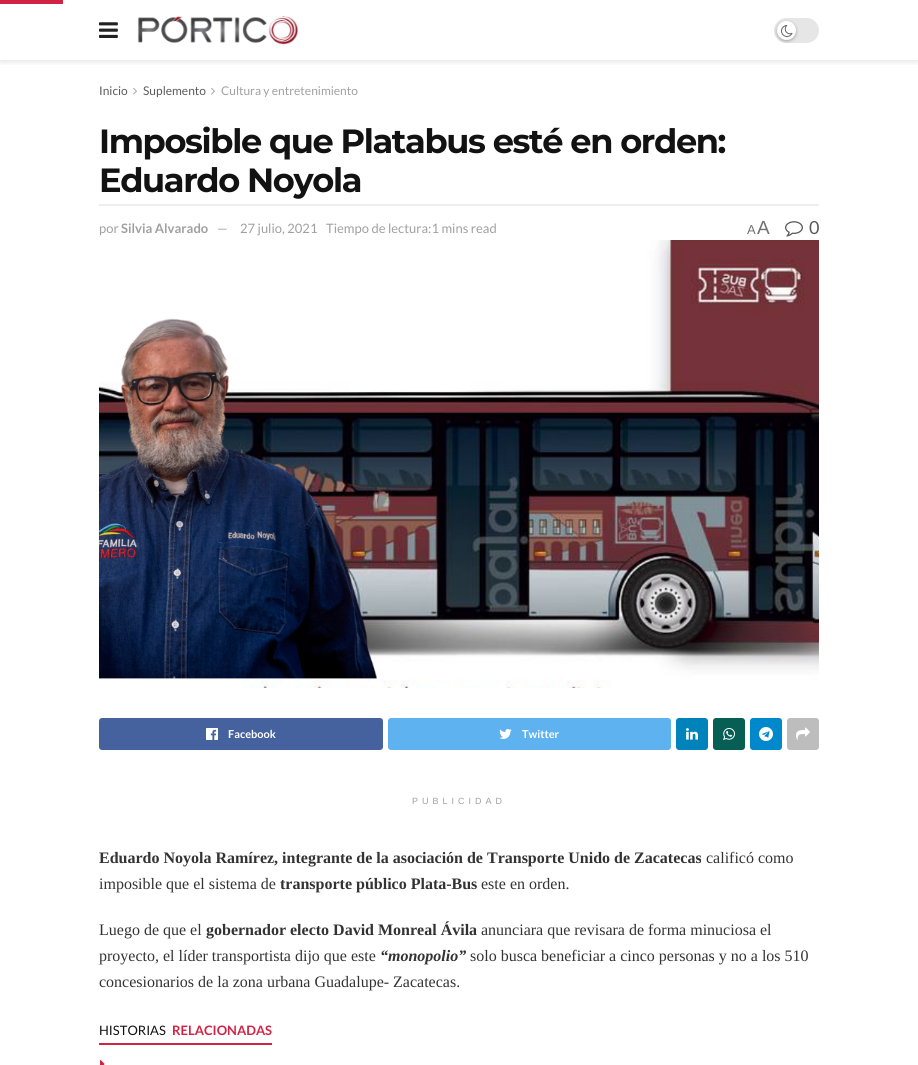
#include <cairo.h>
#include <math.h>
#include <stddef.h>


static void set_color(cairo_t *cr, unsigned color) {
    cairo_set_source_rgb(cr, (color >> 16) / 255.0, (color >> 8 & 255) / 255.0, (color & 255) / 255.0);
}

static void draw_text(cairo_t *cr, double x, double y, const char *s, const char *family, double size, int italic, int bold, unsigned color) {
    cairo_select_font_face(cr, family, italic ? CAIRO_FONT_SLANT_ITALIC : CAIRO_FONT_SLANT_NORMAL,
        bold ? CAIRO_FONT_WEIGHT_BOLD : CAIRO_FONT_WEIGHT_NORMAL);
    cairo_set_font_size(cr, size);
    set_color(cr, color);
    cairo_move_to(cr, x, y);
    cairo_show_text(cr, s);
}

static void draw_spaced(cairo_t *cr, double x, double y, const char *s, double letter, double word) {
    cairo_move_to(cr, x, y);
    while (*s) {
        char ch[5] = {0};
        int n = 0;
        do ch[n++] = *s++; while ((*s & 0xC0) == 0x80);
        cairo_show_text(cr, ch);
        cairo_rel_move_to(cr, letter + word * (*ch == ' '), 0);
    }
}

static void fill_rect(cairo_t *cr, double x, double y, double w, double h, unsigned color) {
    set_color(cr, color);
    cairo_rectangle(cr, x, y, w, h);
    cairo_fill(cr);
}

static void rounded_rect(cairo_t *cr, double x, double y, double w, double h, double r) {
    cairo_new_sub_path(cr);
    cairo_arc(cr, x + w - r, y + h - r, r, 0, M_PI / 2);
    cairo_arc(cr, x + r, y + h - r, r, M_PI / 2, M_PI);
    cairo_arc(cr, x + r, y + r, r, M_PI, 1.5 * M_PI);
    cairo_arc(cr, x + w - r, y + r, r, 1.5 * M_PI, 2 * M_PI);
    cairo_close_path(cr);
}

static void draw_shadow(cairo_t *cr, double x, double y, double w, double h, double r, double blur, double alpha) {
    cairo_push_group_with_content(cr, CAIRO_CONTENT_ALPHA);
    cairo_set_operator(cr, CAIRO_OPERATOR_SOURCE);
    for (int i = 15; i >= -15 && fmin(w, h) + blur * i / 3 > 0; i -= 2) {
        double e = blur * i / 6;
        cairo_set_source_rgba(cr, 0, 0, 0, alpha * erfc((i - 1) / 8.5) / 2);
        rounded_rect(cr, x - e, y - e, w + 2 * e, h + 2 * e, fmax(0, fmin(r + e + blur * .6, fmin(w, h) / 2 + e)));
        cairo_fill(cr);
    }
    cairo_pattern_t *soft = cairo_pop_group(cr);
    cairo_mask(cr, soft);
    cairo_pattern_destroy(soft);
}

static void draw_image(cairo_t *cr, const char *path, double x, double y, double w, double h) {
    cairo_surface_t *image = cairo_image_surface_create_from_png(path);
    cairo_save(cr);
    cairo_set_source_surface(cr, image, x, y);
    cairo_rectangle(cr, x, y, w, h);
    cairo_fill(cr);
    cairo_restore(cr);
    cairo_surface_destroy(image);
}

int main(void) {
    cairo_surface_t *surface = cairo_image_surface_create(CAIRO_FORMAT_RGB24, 918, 1065);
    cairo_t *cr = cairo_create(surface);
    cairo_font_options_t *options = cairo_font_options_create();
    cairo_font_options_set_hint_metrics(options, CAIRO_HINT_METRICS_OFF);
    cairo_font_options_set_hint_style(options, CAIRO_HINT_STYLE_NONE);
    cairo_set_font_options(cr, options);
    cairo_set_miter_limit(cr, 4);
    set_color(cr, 0xFFFFFF);
    cairo_paint(cr);
    cairo_save(cr);
    cairo_rectangle(cr, 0, 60, 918, 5);
    cairo_clip(cr);
    set_color(cr, 0x000000);
    draw_shadow(cr, 0, 2, 918, 60, 0, 3, 0.1);
    cairo_restore(cr);
    fill_rect(cr, 0, 0, 63, 4, 0xD12345);
    draw_image(cr, "assets/img1.png", 99, 22, 19, 16);
    draw_image(cr, "assets/img2.png", 137, 15, 161, 30);
    set_color(cr, 0xE6E6E6);
    rounded_rect(cr, 774, 18, 45, 25, 12.5);
    cairo_fill(cr);
    set_color(cr, 0x000000);
    draw_shadow(cr, 777, 22, 19, 19, 9.5, 1.5, 0.3);
    set_color(cr, 0xFFFFFF);
    cairo_arc(cr, 786.5, 30.5, 9.5, 0, 2 * M_PI);
    cairo_fill(cr);
    draw_image(cr, "assets/img3.png", 781, 25, 12, 12);
    draw_text(cr, 99, 95, "Inicio", "Lato", 12, 0, 0, 0x5A5A5A);
    draw_image(cr, "assets/img4.png", 133, 87, 4, 8);
    draw_text(cr, 143, 95, "Suplemento", "Lato", 12, 0, 0, 0x5A5A5A);
    draw_image(cr, "assets/img4.png", 211, 87, 4, 8);
    draw_text(cr, 221, 95, "Cultura y entretenimiento", "Lato", 12, 0, 0, 0xA0A0A0);
    cairo_select_font_face(cr, "Montserrat", CAIRO_FONT_SLANT_NORMAL, CAIRO_FONT_WEIGHT_BOLD);
    cairo_set_font_size(cr, 33.6);
    set_color(cr, 0x121212);
    draw_spaced(cr, 99, 153, "Imposible que Platabus esté en orden:", -1.35, 0);
    draw_spaced(cr, 99, 192, "Eduardo Noyola", -1.35, 0);
    fill_rect(cr, 99, 204, 720, 2, 0xEEEEEE);
    draw_text(cr, 99, 233, "por", "Lato", 13, 0, 0, 0xA0A0A0);
    draw_text(cr, 121, 233, "Silvia Alvarado", "Lato", 13, 0, 1, 0xA0A0A0);
    draw_text(cr, 217, 233, "—", "Lato", 13, 0, 0, 0xA0A0A0);
    draw_text(cr, 240, 233, "27 julio, 2021", "Lato", 13, 0, 0, 0xA0A0A0);
    draw_text(cr, 326, 233, "Tiempo de lectura:1 mins read", "Lato", 13, 0, 0, 0xA0A0A0);
    draw_text(cr, 747, 234, "A", "Liberation Sans", 13, 0, 0, 0x707070);
    draw_text(cr, 757, 234, "A", "Liberation Sans", 19, 0, 0, 0x707070);
    draw_image(cr, "assets/img5.png", 785, 221, 18, 16);
    draw_text(cr, 809, 234, "0", "Lato", 18, 0, 0, 0x5A5A5A);
    draw_image(cr, "assets/img6.png", 99, 240, 720, 448);
    set_color(cr, 0x45629F);
    rounded_rect(cr, 99, 718, 284, 32, 3);
    cairo_fill(cr);
    draw_image(cr, "assets/img7.png", 206, 728, 12, 12);
    draw_text(cr, 228, 738, "Facebook", "Lato", 11, 0, 1, 0xFFFFFF);
    set_color(cr, 0x5EB2EF);
    rounded_rect(cr, 388, 718, 283, 32, 3);
    cairo_fill(cr);
    draw_image(cr, "assets/img8.png", 499, 729, 13, 10);
    draw_text(cr, 522, 738, "Twitter", "Lato", 11, 0, 1, 0xFFFFFF);
    set_color(cr, 0x0083BB);
    rounded_rect(cr, 676, 718, 32, 32, 3);
    cairo_fill(cr);
    draw_image(cr, "assets/img9.png", 686, 728, 12, 12);
    set_color(cr, 0x075E54);
    rounded_rect(cr, 713, 718, 32, 32, 3);
    cairo_fill(cr);
    draw_image(cr, "assets/img10.png", 723, 728, 12, 12);
    set_color(cr, 0x0088CC);
    rounded_rect(cr, 750, 718, 32, 32, 3);
    cairo_fill(cr);
    draw_image(cr, "assets/img11.png", 759, 727, 14, 14);
    set_color(cr, 0xBDBDBD);
    rounded_rect(cr, 787, 718, 32, 32, 3);
    cairo_fill(cr);
    draw_image(cr, "assets/img12.png", 796, 727, 14, 13);
    cairo_select_font_face(cr, "Liberation Sans", CAIRO_FONT_SLANT_NORMAL, CAIRO_FONT_WEIGHT_NORMAL);
    cairo_set_font_size(cr, 9);
    set_color(cr, 0xA0A0A0);
    draw_spaced(cr, 412, 804, "PUBLICIDAD", 4, 0);
    draw_text(cr, 99, 863, "Eduardo Noyola Ramírez, integrante de la asociación de Transporte Unido de Zacatecas", "Liberation Serif", 16, 0, 1, 0x333333);
    draw_text(cr, 706, 863, "calificó como", "Liberation Serif", 16, 0, 0, 0x333333);
    draw_text(cr, 99, 889, "imposible que el sistema de", "Liberation Serif", 16, 0, 0, 0x333333);
    draw_text(cr, 280, 889, "transporte público Plata-Bus", "Liberation Serif", 16, 0, 1, 0x333333);
    draw_text(cr, 481, 889, "este en orden.", "Liberation Serif", 16, 0, 0, 0x333333);
    draw_text(cr, 99, 935, "Luego de que el", "Liberation Serif", 16, 0, 0, 0x333333);
    draw_text(cr, 206, 935, "gobernador electo David Monreal Ávila", "Liberation Serif", 16, 0, 1, 0x333333);
    draw_text(cr, 481, 935, "anunciara que revisara de forma minuciosa el", "Liberation Serif", 16, 0, 0, 0x333333);
    draw_text(cr, 99, 961, "proyecto, el líder transportista dijo que este", "Liberation Serif", 16, 0, 0, 0x333333);
    draw_text(cr, 380, 961, "“monopolio”", "Liberation Serif", 16, 1, 1, 0x333333);
    draw_text(cr, 470, 961, "solo busca beneficiar a cinco personas y no a los 510", "Liberation Serif", 16, 0, 0, 0x333333);
    draw_text(cr, 99, 987, "concesionarios de la zona urbana Guadalupe- Zacatecas.", "Liberation Serif", 16, 0, 0, 0x333333);
    fill_rect(cr, 99, 1043, 173, 2, 0xD12345);
    draw_text(cr, 99, 1035, "HISTORIAS", "Lato", 13, 0, 0, 0x121212);
    draw_text(cr, 172, 1035, "RELACIONADAS", "Lato", 13, 0, 1, 0xD12345);
    draw_image(cr, "assets/img13.png", 100, 1060, 5, 5);
    cairo_surface_write_to_png(surface, "output.png");
    cairo_font_options_destroy(options);
    cairo_destroy(cr);
    cairo_surface_destroy(surface);
    return 0;
}
